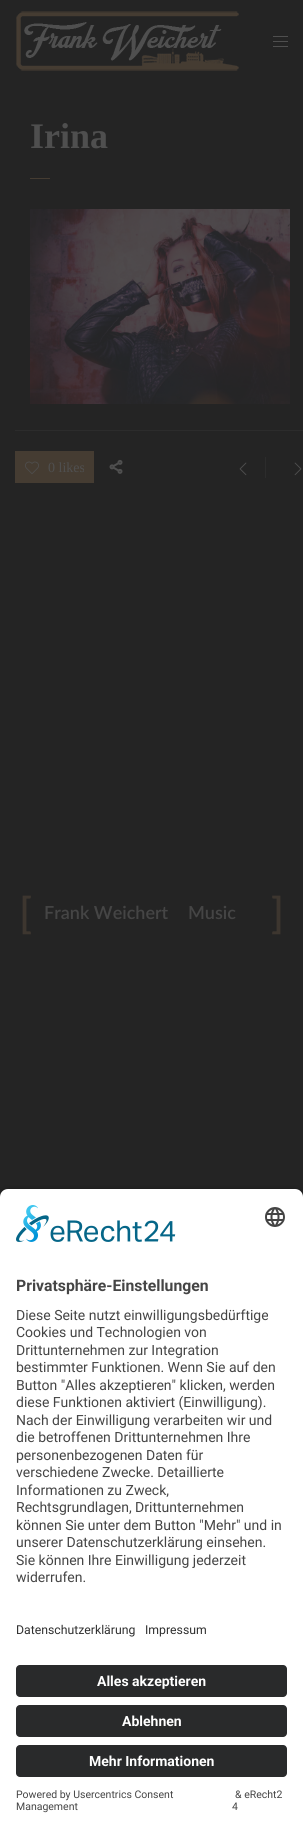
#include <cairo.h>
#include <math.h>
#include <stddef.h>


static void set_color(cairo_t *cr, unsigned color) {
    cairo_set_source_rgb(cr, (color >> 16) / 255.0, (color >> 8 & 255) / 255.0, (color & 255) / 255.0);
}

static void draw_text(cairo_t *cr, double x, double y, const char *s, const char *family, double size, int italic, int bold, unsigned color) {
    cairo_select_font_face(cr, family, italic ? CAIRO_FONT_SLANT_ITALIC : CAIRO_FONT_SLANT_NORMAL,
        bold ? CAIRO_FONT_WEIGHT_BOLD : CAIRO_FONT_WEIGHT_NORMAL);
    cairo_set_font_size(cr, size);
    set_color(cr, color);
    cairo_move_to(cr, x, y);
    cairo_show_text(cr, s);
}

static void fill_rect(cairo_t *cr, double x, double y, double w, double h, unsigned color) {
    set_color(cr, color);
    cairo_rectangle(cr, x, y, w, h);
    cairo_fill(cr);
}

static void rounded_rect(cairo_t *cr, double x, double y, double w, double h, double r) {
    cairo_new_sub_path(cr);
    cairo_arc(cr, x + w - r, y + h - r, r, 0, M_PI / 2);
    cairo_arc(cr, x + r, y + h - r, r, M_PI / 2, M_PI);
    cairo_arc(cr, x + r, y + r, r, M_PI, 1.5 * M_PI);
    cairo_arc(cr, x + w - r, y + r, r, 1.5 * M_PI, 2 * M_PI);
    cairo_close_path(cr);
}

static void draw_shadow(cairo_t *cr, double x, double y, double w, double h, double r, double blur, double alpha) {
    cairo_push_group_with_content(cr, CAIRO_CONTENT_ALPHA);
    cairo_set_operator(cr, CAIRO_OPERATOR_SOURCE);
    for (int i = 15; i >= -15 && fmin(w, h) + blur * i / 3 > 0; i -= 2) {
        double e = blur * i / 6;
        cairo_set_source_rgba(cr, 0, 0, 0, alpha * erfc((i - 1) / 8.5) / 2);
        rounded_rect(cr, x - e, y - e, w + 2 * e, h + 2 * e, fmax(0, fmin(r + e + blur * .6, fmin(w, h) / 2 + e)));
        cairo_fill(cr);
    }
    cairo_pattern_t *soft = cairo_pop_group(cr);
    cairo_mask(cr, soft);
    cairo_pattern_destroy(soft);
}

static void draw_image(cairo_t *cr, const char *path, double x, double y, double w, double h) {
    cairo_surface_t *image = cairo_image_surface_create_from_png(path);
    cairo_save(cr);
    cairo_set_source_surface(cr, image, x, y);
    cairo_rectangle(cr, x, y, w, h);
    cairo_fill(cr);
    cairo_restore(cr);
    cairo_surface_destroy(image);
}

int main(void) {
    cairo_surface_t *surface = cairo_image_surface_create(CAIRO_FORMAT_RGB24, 303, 1829);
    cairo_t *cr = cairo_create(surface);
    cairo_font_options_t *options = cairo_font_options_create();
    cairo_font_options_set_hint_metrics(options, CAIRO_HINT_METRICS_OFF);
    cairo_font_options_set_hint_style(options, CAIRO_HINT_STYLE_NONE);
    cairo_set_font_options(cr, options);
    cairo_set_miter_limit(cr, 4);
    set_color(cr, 0x242424);
    cairo_paint(cr);
    draw_image(cr, "assets/img1.png", 16, 11, 223, 60);
    fill_rect(cr, 273, 36, 15, 1, 0x4F4F4F);
    fill_rect(cr, 273, 41, 15, 1, 0x4F4F4F);
    fill_rect(cr, 273, 46, 15, 1, 0x4F4F4F);
    draw_text(cr, 30, 148, "Irina", "Liberation Serif", 36, 0, 1, 0x4F4F4F);
    fill_rect(cr, 30, 178, 20, 1, 0x453C32);
    draw_image(cr, "assets/img2.png", 30, 209, 260, 195);
    fill_rect(cr, 15, 430, 288, 1, 0x2C2C2C);
    fill_rect(cr, 15, 451, 79, 32, 0x453C32);
    draw_image(cr, "assets/img3.png", 25, 461, 14, 14);
    draw_text(cr, 48, 472, "0 likes", "Liberation Serif", 14, 0, 0, 0x4F4F4F);
    draw_image(cr, "assets/img4.png", 109, 459, 14, 15);
    draw_image(cr, "assets/img5.png", 239, 462, 8, 14);
    fill_rect(cr, 265, 457, 1, 21, 0x2C2C2C);
    draw_image(cr, "assets/img6.png", 294, 462, 8, 14);
    draw_text(cr, 19, 928, "[", "Lato SemiBold", 42, 0, 0, 0x3D362F);
    draw_text(cr, 44, 919, "Frank Weichert", "Lato SemiBold", 18, 0, 0, 0x454545);
    draw_text(cr, 188, 919, "Music", "Lato SemiBold", 18, 0, 0, 0x454545);
    draw_text(cr, 271, 928, "]", "Lato SemiBold", 42, 0, 0, 0x3D362F);
    set_color(cr, 0x000000);
    draw_shadow(cr, 0, 1192, 303, 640, 8, 3.5, 0.8);
    set_color(cr, 0xFFFFFF);
    cairo_new_path(cr);
    cairo_move_to(cr, 8, 1189);
    cairo_line_to(cr, 295, 1189);
    cairo_curve_to(cr, 299.5, 1189, 303, 1192.5, 303, 1197);
    cairo_line_to(cr, 303, 1607);
    cairo_line_to(cr, 0, 1607);
    cairo_line_to(cr, 0, 1197);
    cairo_curve_to(cr, 0, 1192.5, 3.5, 1189, 8, 1189);
    cairo_close_path(cr);
    cairo_fill(cr);
    draw_image(cr, "assets/img7.png", 16, 1205, 160, 37);
    draw_image(cr, "assets/img8.png", 265, 1207, 20, 20);
    draw_text(cr, 16, 1291, "Privatsphäre-Einstellungen", "Roboto", 15.75, 0, 1, 0x454545);
    draw_text(cr, 16, 1320, "Diese Seite nutzt einwilligungsbedürftige", "Roboto", 14, 0, 0, 0x454545);
    draw_text(cr, 16, 1337, "Cookies und Technologien von", "Roboto", 14, 0, 0, 0x454545);
    draw_text(cr, 16, 1355, "Drittunternehmen zur Integration", "Roboto", 14, 0, 0, 0x454545);
    draw_text(cr, 16, 1372, "bestimmter Funktionen. Wenn Sie auf den", "Roboto", 14, 0, 0, 0x454545);
    draw_text(cr, 16, 1390, "Button \"Alles akzeptieren\" klicken, werden", "Roboto", 14, 0, 0, 0x454545);
    draw_text(cr, 16, 1407, "diese Funktionen aktiviert (Einwilligung).", "Roboto", 14, 0, 0, 0x454545);
    draw_text(cr, 16, 1425, "Nach der Einwilligung verarbeiten wir und", "Roboto", 14, 0, 0, 0x454545);
    draw_text(cr, 16, 1442, "die betroffenen Drittunternehmen Ihre", "Roboto", 14, 0, 0, 0x454545);
    draw_text(cr, 16, 1460, "personenbezogenen Daten für", "Roboto", 14, 0, 0, 0x454545);
    draw_text(cr, 16, 1477, "verschiedene Zwecke. Detaillierte", "Roboto", 14, 0, 0, 0x454545);
    draw_text(cr, 16, 1495, "Informationen zu Zweck,", "Roboto", 14, 0, 0, 0x454545);
    draw_text(cr, 16, 1512, "Rechtsgrundlagen, Drittunternehmen", "Roboto", 14, 0, 0, 0x454545);
    draw_text(cr, 16, 1530, "können Sie unter dem Button \"Mehr\" und in", "Roboto", 14, 0, 0, 0x454545);
    draw_text(cr, 16, 1547, "unserer Datenschutzerklärung einsehen.", "Roboto", 14, 0, 0, 0x454545);
    draw_text(cr, 16, 1565, "Sie können Ihre Einwilligung jederzeit", "Roboto", 14, 0, 0, 0x454545);
    draw_text(cr, 16, 1582, "widerrufen.", "Roboto", 14, 0, 0, 0x454545);
    fill_rect(cr, 0, 1607, 303, 222, 0xFFFFFF);
    draw_text(cr, 16, 1634, "Datenschutzerklärung", "Roboto", 12.25, 0, 0, 0x303030);
    draw_text(cr, 145, 1634, "Impressum", "Roboto", 12.25, 0, 0, 0x303030);
    set_color(cr, 0x292A2B);
    rounded_rect(cr, 16, 1665, 271, 32, 4);
    cairo_fill(cr);
    draw_text(cr, 97, 1686, "Alles akzeptieren", "Roboto", 14, 0, 1, 0xFFFFFF);
    set_color(cr, 0x292A2B);
    rounded_rect(cr, 16, 1705, 271, 32, 4);
    cairo_fill(cr);
    draw_text(cr, 122, 1726, "Ablehnen", "Roboto", 14, 0, 1, 0xFFFFFF);
    set_color(cr, 0x292A2B);
    rounded_rect(cr, 16, 1745, 271, 32, 4);
    cairo_fill(cr);
    draw_text(cr, 89, 1766, "Mehr Informationen", "Roboto", 14, 0, 1, 0xFFFFFF);
    draw_text(cr, 16, 1798, "Powered by Usercentrics Consent", "Roboto", 10.5, 0, 0, 0x454545);
    draw_text(cr, 16, 1810, "Management", "Roboto", 10.5, 0, 0, 0x454545);
    draw_text(cr, 235, 1798, "& eRecht2", "Roboto", 10.5, 0, 0, 0x454545);
    draw_text(cr, 232, 1810, "4", "Roboto", 10.5, 0, 0, 0x454545);
    cairo_surface_write_to_png(surface, "output.png");
    cairo_font_options_destroy(options);
    cairo_destroy(cr);
    cairo_surface_destroy(surface);
    return 0;
}
